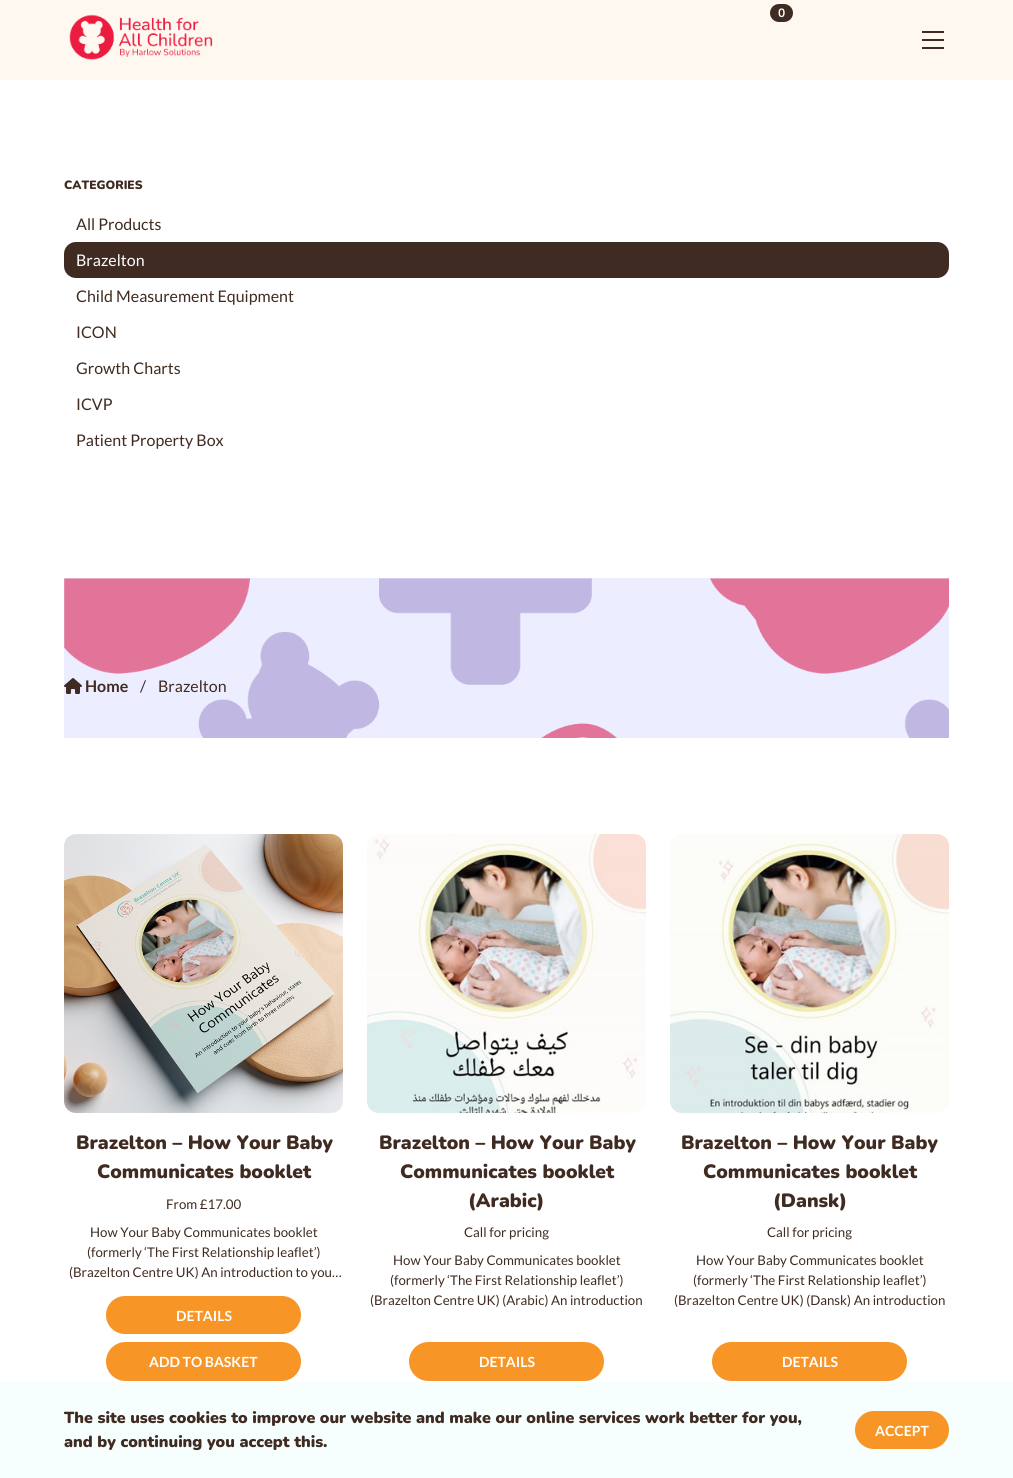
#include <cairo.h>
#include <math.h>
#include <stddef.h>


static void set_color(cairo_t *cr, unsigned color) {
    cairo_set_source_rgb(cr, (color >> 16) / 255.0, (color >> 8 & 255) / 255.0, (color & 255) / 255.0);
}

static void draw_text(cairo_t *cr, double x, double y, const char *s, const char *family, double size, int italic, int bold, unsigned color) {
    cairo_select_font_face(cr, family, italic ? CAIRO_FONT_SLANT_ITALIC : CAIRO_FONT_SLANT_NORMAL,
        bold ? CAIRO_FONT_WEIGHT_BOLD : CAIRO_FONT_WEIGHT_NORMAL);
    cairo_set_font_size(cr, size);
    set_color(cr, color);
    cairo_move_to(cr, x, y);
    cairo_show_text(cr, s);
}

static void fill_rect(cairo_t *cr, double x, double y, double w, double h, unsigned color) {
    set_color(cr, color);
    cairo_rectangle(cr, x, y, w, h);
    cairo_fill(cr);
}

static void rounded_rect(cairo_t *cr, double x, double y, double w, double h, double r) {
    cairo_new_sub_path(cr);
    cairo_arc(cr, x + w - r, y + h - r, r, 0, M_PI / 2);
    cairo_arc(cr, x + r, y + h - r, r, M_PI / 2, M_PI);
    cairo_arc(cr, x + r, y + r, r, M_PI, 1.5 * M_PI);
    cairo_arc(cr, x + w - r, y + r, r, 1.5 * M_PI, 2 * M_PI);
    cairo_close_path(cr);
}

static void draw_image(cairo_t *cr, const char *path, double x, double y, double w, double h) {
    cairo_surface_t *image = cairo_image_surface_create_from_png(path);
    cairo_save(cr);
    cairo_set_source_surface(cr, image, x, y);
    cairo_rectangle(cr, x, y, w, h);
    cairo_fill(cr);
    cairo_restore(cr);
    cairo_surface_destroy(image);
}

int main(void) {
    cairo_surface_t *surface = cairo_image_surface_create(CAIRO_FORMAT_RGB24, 1013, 1478);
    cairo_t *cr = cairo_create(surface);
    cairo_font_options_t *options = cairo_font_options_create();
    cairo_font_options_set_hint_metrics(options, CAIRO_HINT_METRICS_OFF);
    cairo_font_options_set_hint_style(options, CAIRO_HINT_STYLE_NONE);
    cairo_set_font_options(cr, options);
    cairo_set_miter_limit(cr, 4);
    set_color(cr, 0xFFFFFF);
    cairo_paint(cr);
    fill_rect(cr, 64, 578, 885, 160, 0xECEDFF);
    fill_rect(cr, 0, 0, 1013, 80, 0xFFF8F0);
    rounded_rect(cr, 769, 3, 25, 20, 10);
    set_color(cr, 0xFFF9F3);
    cairo_stroke(cr);
    set_color(cr, 0x3F2B21);
    rounded_rect(cr, 770, 4, 23, 18, 9);
    cairo_fill(cr);
    draw_text(cr, 778, 17, "0", "Nunito", 12, 0, 1, 0xFFFFFF);
    fill_rect(cr, 922, 31, 22, 2, 0x3F2B21);
    fill_rect(cr, 922, 39, 22, 2, 0x3F2B21);
    fill_rect(cr, 922, 47, 22, 2, 0x3F2B21);
    draw_image(cr, "assets/img1.png", 69, 14, 144, 46);
    draw_text(cr, 64, 189, "CATEGORIES", "Nunito Black", 12, 0, 0, 0x3F2B21);
    draw_text(cr, 76, 230, "All Products", "Lato", 16, 0, 0, 0x3F2B21);
    rounded_rect(cr, 64, 242, 885, 36, 12);
    cairo_fill(cr);
    draw_text(cr, 76, 266, "Brazelton", "Lato", 16, 0, 0, 0xFFFFFF);
    draw_text(cr, 76, 302, "Child Measurement Equipment", "Lato", 16, 0, 0, 0x3F2B21);
    draw_text(cr, 76, 338, "ICON", "Lato", 16, 0, 0, 0x3F2B21);
    draw_text(cr, 76, 374, "Growth Charts", "Lato", 16, 0, 0, 0x3F2B21);
    draw_text(cr, 76, 410, "ICVP", "Lato", 16, 0, 0, 0x3F2B21);
    draw_text(cr, 76, 446, "Patient Property Box", "Lato", 16, 0, 0, 0x3F2B21);
    draw_image(cr, "assets/img2.png", 64, 578, 885, 160);
    draw_image(cr, "assets/img3.png", 64, 678, 18, 16);
    draw_text(cr, 85, 692, "Home", "Lato", 16, 0, 1, 0x3F2B21);
    draw_text(cr, 140, 692, "/", "Lato", 16, 0, 0, 0x3F2B21);
    draw_text(cr, 158, 692, "Brazelton", "Lato", 16, 0, 0, 0x3F2B21);
    draw_image(cr, "assets/img4.png", 64, 834, 279, 279);
    draw_text(cr, 76, 1149, "Brazelton – How Your Baby", "Nunito Black", 19.25, 0, 0, 0x3F2B21);
    draw_text(cr, 97, 1178, "Communicates booklet", "Nunito Black", 19.25, 0, 0, 0x3F2B21);
    draw_text(cr, 166, 1209, "From £17.00", "Lato", 13.3, 0, 0, 0x3F2B21);
    draw_text(cr, 90, 1237, "How Your Baby Communicates booklet", "Lato", 13.3, 0, 0, 0x3F2B21);
    draw_text(cr, 87, 1257, "(formerly ‘The First Relationship leaflet’)", "Lato", 13.3, 0, 0, 0x3F2B21);
    draw_text(cr, 69, 1277, "(Brazelton Centre UK) An introduction to you…", "Lato", 13.3, 0, 0, 0x3F2B21);
    set_color(cr, 0xF79627);
    rounded_rect(cr, 106, 1296, 195, 38, 19);
    cairo_fill(cr);
    draw_text(cr, 176, 1321, "DETAILS", "Lato", 14, 0, 1, 0xFFFFFF);
    set_color(cr, 0xF79627);
    rounded_rect(cr, 106, 1342, 195, 39, 19.5);
    cairo_fill(cr);
    draw_text(cr, 149, 1367, "ADD TO BASKET", "Lato", 14, 0, 1, 0xFFFFFF);
    draw_image(cr, "assets/img5.png", 367, 834, 279, 279);
    draw_text(cr, 379, 1149, "Brazelton – How Your Baby", "Nunito Black", 19.25, 0, 0, 0x3F2B21);
    draw_text(cr, 400, 1178, "Communicates booklet", "Nunito Black", 19.25, 0, 0, 0x3F2B21);
    draw_text(cr, 468, 1207, "(Arabic)", "Nunito Black", 19.25, 0, 0, 0x3F2B21);
    draw_text(cr, 464, 1237, "Call for pricing", "Lato", 13.3, 0, 0, 0x3F2B21);
    draw_text(cr, 393, 1265, "How Your Baby Communicates booklet", "Lato", 13.3, 0, 0, 0x3F2B21);
    draw_text(cr, 390, 1285, "(formerly ‘The First Relationship leaflet’)", "Lato", 13.3, 0, 0, 0x3F2B21);
    draw_text(cr, 370, 1305, "(Brazelton Centre UK) (Arabic) An introduction", "Lato", 13.3, 0, 0, 0x3F2B21);
    set_color(cr, 0xF79627);
    rounded_rect(cr, 409, 1342, 195, 39, 19.5);
    cairo_fill(cr);
    draw_text(cr, 479, 1367, "DETAILS", "Lato", 14, 0, 1, 0xFFFFFF);
    draw_image(cr, "assets/img6.png", 670, 834, 279, 279);
    draw_text(cr, 681, 1149, "Brazelton – How Your Baby", "Nunito Black", 19.25, 0, 0, 0x3F2B21);
    draw_text(cr, 703, 1178, "Communicates booklet", "Nunito Black", 19.25, 0, 0, 0x3F2B21);
    draw_text(cr, 773, 1207, "(Dansk)", "Nunito Black", 19.25, 0, 0, 0x3F2B21);
    draw_text(cr, 767, 1237, "Call for pricing", "Lato", 13.3, 0, 0, 0x3F2B21);
    draw_text(cr, 696, 1265, "How Your Baby Communicates booklet", "Lato", 13.3, 0, 0, 0x3F2B21);
    draw_text(cr, 693, 1285, "(formerly ‘The First Relationship leaflet’)", "Lato", 13.3, 0, 0, 0x3F2B21);
    draw_text(cr, 674, 1305, "(Brazelton Centre UK) (Dansk) An introduction", "Lato", 13.3, 0, 0, 0x3F2B21);
    set_color(cr, 0xF79627);
    rounded_rect(cr, 712, 1342, 195, 39, 19.5);
    cairo_fill(cr);
    draw_text(cr, 782, 1367, "DETAILS", "Lato", 14, 0, 1, 0xFFFFFF);
    fill_rect(cr, 0, 1382, 1013, 96, 0xF7FFFE);
    draw_text(cr, 64, 1423, "The site uses cookies to improve our website and make our online services work better for you,", "Nunito Black", 16, 0, 0, 0x3F2B21);
    draw_text(cr, 64, 1447, "and by continuing you accept this.", "Nunito Black", 16, 0, 0, 0x3F2B21);
    set_color(cr, 0xF79627);
    rounded_rect(cr, 855, 1411, 94, 38, 19);
    cairo_fill(cr);
    draw_text(cr, 875, 1436, "ACCEPT", "Lato", 14, 0, 1, 0xFFFFFF);
    cairo_surface_write_to_png(surface, "output.png");
    cairo_font_options_destroy(options);
    cairo_destroy(cr);
    cairo_surface_destroy(surface);
    return 0;
}
